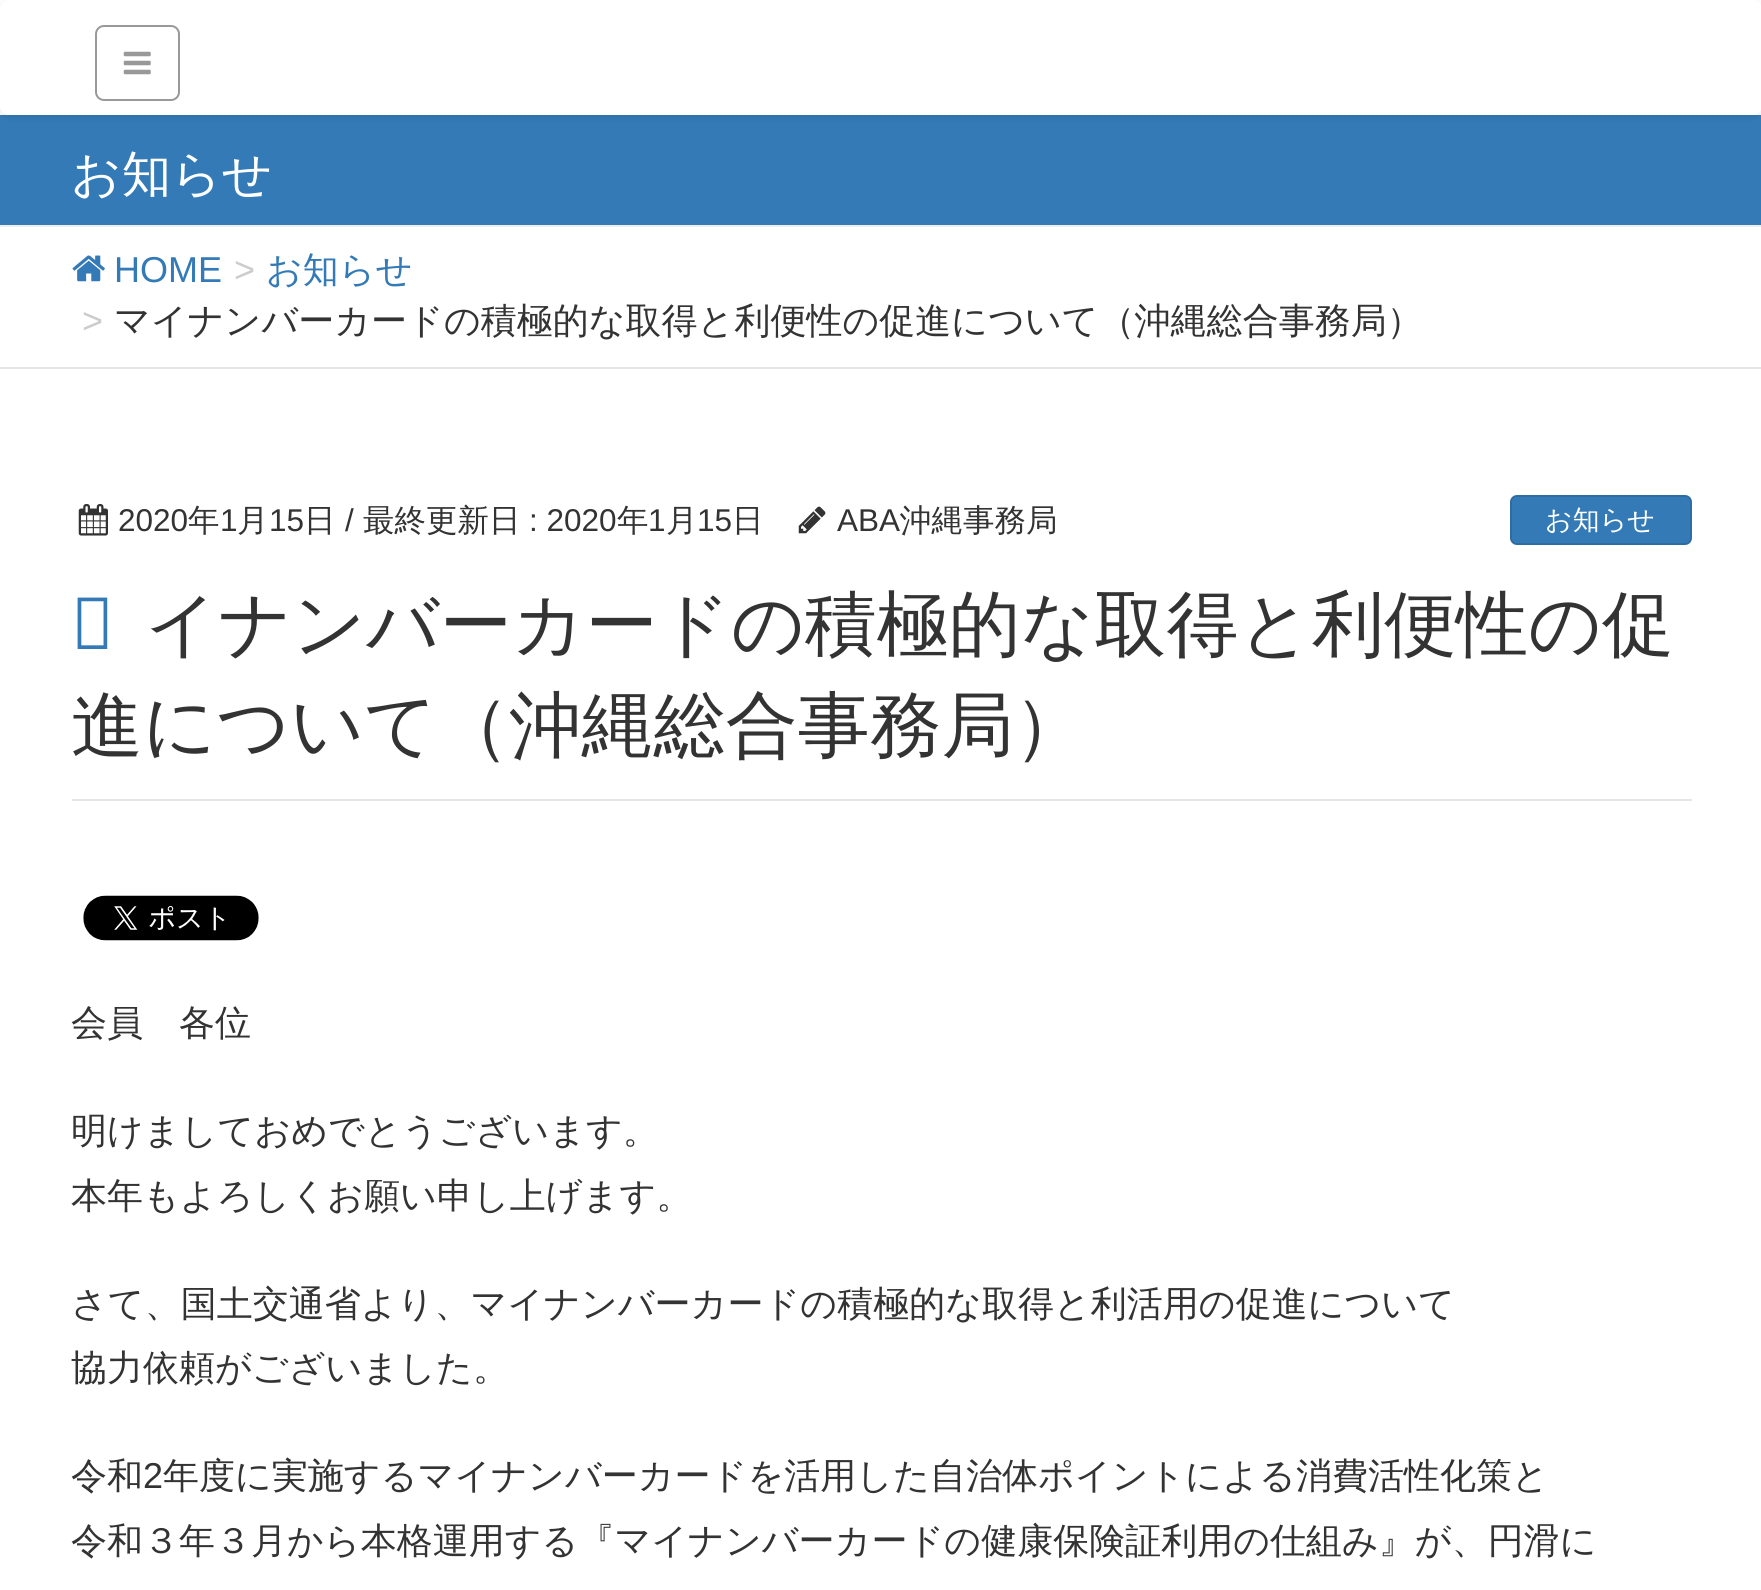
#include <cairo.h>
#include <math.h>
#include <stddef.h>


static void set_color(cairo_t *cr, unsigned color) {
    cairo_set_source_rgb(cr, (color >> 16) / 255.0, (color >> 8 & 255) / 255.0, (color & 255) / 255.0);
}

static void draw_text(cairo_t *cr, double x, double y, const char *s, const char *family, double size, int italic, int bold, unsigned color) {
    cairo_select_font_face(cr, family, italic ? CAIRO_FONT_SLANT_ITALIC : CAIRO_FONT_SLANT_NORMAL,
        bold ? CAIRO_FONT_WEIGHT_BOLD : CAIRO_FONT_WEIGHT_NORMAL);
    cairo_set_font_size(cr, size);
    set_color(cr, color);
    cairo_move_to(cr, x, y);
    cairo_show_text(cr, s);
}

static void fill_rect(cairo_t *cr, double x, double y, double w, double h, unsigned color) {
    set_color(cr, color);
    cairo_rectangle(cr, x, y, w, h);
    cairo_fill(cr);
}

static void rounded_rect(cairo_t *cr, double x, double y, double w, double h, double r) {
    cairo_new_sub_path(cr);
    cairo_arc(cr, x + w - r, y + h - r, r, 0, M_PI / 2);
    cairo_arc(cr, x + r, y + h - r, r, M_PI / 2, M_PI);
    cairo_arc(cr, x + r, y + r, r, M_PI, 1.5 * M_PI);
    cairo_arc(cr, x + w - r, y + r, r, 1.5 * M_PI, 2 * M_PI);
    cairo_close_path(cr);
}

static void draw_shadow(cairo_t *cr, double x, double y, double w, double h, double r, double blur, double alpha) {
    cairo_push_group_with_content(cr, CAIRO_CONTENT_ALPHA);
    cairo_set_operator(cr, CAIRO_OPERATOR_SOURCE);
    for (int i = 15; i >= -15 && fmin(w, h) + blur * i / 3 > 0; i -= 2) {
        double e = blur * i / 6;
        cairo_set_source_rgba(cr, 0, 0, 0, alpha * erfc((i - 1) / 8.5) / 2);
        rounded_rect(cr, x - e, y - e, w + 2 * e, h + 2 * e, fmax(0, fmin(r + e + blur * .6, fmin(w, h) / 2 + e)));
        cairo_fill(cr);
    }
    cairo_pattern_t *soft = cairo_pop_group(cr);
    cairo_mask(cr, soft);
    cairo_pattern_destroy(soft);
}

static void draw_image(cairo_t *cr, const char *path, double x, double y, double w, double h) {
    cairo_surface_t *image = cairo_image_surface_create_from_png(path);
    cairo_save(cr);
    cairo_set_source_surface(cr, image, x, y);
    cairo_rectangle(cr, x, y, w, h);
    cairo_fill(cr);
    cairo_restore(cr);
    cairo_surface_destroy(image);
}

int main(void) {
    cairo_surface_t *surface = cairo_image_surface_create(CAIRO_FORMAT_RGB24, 1761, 1590);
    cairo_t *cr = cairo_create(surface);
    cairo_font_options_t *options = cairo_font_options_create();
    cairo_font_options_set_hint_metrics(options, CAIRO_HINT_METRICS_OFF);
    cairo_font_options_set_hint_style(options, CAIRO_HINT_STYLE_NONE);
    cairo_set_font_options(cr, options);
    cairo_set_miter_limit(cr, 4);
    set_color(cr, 0xFFFFFF);
    cairo_paint(cr);
    fill_rect(cr, 0, 115, 1761, 110, 0x337AB7);
    set_color(cr, 0x000000);
    draw_shadow(cr, 0, 2, 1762, 115, 9, 3.5, 0.1);
    set_color(cr, 0xFFFFFF);
    rounded_rect(cr, 0, 0, 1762, 115, 9);
    cairo_fill(cr);
    rounded_rect(cr, 96, 26, 83, 74, 8);
    set_color(cr, 0x999999);
    cairo_stroke(cr);
    draw_image(cr, "assets/img1.png", 123, 51, 28, 24);
    fill_rect(cr, 0, 225, 1761, 2, 0xEEEEEE);
    draw_text(cr, 71, 191, "お知らせ", "WenQuanYi Zen Hei Medium", 49.5, 0, 0, 0xFFFFFF);
    fill_rect(cr, 0, 367, 1761, 2, 0xE5E5E5);
    draw_image(cr, "assets/img2.png", 72, 255, 33, 27);
    draw_text(cr, 114, 282, "HOME", "Liberation Sans", 36, 0, 0, 0x337AB7);
    draw_text(cr, 234, 282, ">", "Liberation Sans", 36, 0, 0, 0xCCCCCC);
    draw_text(cr, 266, 282, "お知らせ", "WenQuanYi Zen Hei Medium", 36, 0, 0, 0x337AB7);
    draw_text(cr, 82, 333, ">", "Liberation Sans", 36, 0, 0, 0xCCCCCC);
    draw_text(cr, 114, 333, "マイナンバーカードの積極的な取得と利便性の促進について（沖縄総合事務局）", "WenQuanYi Zen Hei Medium", 36, 0, 0, 0x333333);
    fill_rect(cr, 72, 799, 1620, 2, 0xE5E5E5);
    draw_image(cr, "assets/img3.png", 78, 504, 30, 32);
    draw_text(cr, 118, 531, "2020", "Liberation Sans", 31.5, 0, 0, 0x333333);
    draw_text(cr, 188, 531, "年", "WenQuanYi Zen Hei Medium", 31.5, 0, 0, 0x333333);
    draw_text(cr, 220, 531, "1", "Liberation Sans", 31.5, 0, 0, 0x333333);
    draw_text(cr, 237, 531, "月", "WenQuanYi Zen Hei Medium", 31.5, 0, 0, 0x333333);
    draw_text(cr, 269, 531, "15", "Liberation Sans", 31.5, 0, 0, 0x333333);
    draw_text(cr, 304, 531, "日", "WenQuanYi Zen Hei Medium", 31.5, 0, 0, 0x333333);
    draw_text(cr, 345, 531, "/", "Liberation Sans", 31.5, 0, 0, 0x333333);
    draw_text(cr, 363, 531, "最終更新日", "WenQuanYi Zen Hei Medium", 31.5, 0, 0, 0x333333);
    draw_text(cr, 529, 531, ": 2020", "Liberation Sans", 31.5, 0, 0, 0x333333);
    draw_text(cr, 617, 531, "年", "WenQuanYi Zen Hei Medium", 31.5, 0, 0, 0x333333);
    draw_text(cr, 648, 531, "1", "Liberation Sans", 31.5, 0, 0, 0x333333);
    draw_text(cr, 666, 531, "月", "WenQuanYi Zen Hei Medium", 31.5, 0, 0, 0x333333);
    draw_text(cr, 697, 531, "15", "Liberation Sans", 31.5, 0, 0, 0x333333);
    draw_text(cr, 732, 531, "日", "WenQuanYi Zen Hei Medium", 31.5, 0, 0, 0x333333);
    draw_image(cr, "assets/img4.png", 798, 506, 28, 28);
    draw_text(cr, 837, 531, "ABA", "Liberation Sans", 31.5, 0, 0, 0x333333);
    draw_text(cr, 900, 531, "沖縄事務局", "WenQuanYi Zen Hei Medium", 31.5, 0, 0, 0x333333);
    set_color(cr, 0x337AB7);
    rounded_rect(cr, 1511, 496, 180, 48, 6);
    cairo_fill_preserve(cr);
    set_color(cr, 0x2E6DA4);
    cairo_stroke(cr);
    draw_text(cr, 1545, 529, "お知らせ", "WenQuanYi Zen Hei Medium", 27, 0, 0, 0xFFFFFF);
    draw_text(cr, 71, 649, "マ", "Noto Sans Medium", 72, 0, 0, 0x337AB7);
    draw_text(cr, 145, 649, "イナンバーカードの積極的な取得と利便性の促", "WenQuanYi Zen Hei Medium", 72, 0, 0, 0x333333);
    draw_text(cr, 71, 750, "進について（沖縄総合事務局）", "WenQuanYi Zen Hei Medium", 72, 0, 0, 0x333333);
    draw_image(cr, "assets/img5.png", 83, 895, 176, 46);
    draw_text(cr, 71, 1035, "会員　各位", "WenQuanYi Zen Hei Medium", 36, 0, 0, 0x333333);
    draw_text(cr, 71, 1143, "明けましておめでとうございます。", "WenQuanYi Zen Hei Medium", 36, 0, 0, 0x333333);
    draw_text(cr, 71, 1208, "本年もよろしくお願い申し上げます。", "WenQuanYi Zen Hei Medium", 36, 0, 0, 0x333333);
    draw_text(cr, 71, 1316, "さて、国土交通省より、マイナンバーカードの積極的な取得と利活用の促進について", "WenQuanYi Zen Hei Medium", 36, 0, 0, 0x333333);
    draw_text(cr, 71, 1380, "協力依頼がございました。", "WenQuanYi Zen Hei Medium", 36, 0, 0, 0x333333);
    draw_text(cr, 71, 1488, "令和", "WenQuanYi Zen Hei Medium", 36, 0, 0, 0x333333);
    draw_text(cr, 143, 1488, "2", "Liberation Sans", 36, 0, 0, 0x333333);
    draw_text(cr, 163, 1488, "年度に実施するマイナンバーカードを活用した自治体ポイントによる消費活性化策と", "WenQuanYi Zen Hei Medium", 36, 0, 0, 0x333333);
    draw_text(cr, 71, 1553, "令和３年３月から本格運用する『マイナンバーカードの健康保険証利用の仕組み』が、円滑に", "WenQuanYi Zen Hei Medium", 36, 0, 0, 0x333333);
    cairo_surface_write_to_png(surface, "output.png");
    cairo_font_options_destroy(options);
    cairo_destroy(cr);
    cairo_surface_destroy(surface);
    return 0;
}
